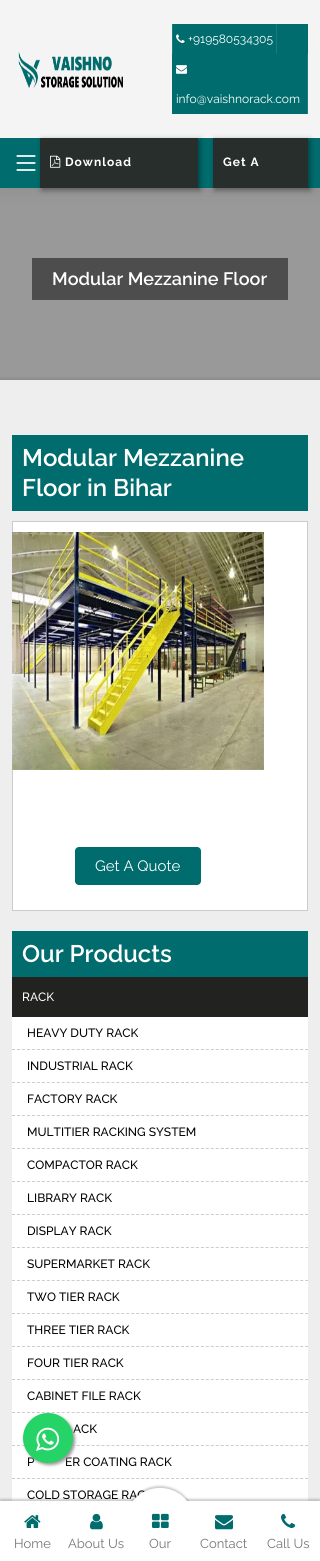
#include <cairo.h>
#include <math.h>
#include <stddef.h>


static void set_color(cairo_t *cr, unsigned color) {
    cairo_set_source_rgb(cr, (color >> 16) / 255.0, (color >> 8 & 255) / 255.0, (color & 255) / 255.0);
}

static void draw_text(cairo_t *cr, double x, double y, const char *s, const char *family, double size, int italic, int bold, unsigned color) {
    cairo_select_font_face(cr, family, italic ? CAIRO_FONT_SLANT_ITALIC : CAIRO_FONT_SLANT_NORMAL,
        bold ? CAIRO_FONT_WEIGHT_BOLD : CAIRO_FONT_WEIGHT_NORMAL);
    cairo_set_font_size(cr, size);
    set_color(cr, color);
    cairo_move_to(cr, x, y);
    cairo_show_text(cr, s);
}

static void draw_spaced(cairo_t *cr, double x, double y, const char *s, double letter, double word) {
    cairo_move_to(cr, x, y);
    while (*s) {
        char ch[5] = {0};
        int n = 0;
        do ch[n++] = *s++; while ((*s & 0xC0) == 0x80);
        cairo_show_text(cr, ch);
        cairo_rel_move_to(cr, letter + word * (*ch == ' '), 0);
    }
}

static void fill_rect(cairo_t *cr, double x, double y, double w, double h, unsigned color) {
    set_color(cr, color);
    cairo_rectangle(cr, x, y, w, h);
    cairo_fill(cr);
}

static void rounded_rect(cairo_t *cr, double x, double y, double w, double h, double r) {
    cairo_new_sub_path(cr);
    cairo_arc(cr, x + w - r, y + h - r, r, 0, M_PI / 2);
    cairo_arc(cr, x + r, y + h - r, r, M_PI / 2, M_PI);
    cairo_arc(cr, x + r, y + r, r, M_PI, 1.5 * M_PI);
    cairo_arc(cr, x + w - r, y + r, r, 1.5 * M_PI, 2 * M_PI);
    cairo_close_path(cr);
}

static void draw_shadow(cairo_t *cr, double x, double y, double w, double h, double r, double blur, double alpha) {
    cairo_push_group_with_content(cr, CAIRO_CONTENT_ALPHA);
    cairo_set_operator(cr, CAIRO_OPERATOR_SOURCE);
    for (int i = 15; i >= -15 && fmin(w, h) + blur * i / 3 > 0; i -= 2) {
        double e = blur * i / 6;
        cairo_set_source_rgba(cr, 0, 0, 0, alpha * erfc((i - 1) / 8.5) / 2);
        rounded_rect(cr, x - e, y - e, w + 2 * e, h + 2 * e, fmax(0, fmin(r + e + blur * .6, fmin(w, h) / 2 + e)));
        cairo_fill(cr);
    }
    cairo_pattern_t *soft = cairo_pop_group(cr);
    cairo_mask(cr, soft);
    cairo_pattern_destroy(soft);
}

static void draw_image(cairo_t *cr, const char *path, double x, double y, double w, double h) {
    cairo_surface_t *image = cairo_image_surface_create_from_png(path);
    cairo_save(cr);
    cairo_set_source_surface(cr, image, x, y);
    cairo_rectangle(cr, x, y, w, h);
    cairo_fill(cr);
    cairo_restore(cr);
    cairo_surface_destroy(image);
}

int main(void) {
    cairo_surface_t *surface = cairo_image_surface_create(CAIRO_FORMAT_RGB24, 320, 1561);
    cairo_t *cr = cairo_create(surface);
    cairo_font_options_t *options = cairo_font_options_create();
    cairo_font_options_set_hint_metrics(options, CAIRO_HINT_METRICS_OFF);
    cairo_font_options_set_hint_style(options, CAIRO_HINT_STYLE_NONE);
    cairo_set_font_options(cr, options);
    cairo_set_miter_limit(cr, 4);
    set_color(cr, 0xFFFFFF);
    cairo_paint(cr);
    set_color(cr, 0x000000);
    draw_shadow(cr, 0, 138, 320, 50, 0, 10, 0.1);
    fill_rect(cr, 0, 0, 320, 138, 0xF4F4F4);
    draw_image(cr, "assets/img1.png", 18, 52, 105, 36);
    fill_rect(cr, 172, 24, 136, 90, 0x006C6D);
    fill_rect(cr, 172, 24, 1, 30, 0x1A7B7C);
    draw_image(cr, "assets/img2.png", 176, 34, 9, 9);
    draw_text(cr, 188, 43, "+919580534305", "Raleway", 12, 0, 0, 0xFFFFFF);
    fill_rect(cr, 276, 24, 1, 30, 0x1A7B7C);
    draw_image(cr, "assets/img3.png", 176, 65, 11, 9);
    draw_text(cr, 176, 103, "info@vaishnorack.com", "Raleway", 12, 0, 0, 0xFFFFFF);
    fill_rect(cr, 307, 54, 1, 60, 0x1A7B7C);
    fill_rect(cr, 0, 138, 320, 50, 0x006C6D);
    set_color(cr, 0x000000);
    draw_shadow(cr, 42, 140, 158, 50, 0, 3, 0.4);
    draw_image(cr, "assets/img4.png", 16, 155, 20, 16);
    fill_rect(cr, 40, 138, 158, 50, 0x282E2C);
    draw_image(cr, "assets/img5.png", 50, 155, 11, 13);
    cairo_select_font_face(cr, "Raleway", CAIRO_FONT_SLANT_NORMAL, CAIRO_FONT_WEIGHT_BOLD);
    set_color(cr, 0xFFFFFF);
    draw_spaced(cr, 65, 166, "Download", 1, 0);
    set_color(cr, 0x000000);
    draw_shadow(cr, 215, 140, 95, 50, 0, 3, 0.4);
    fill_rect(cr, 213, 138, 95, 50, 0x282E2C);
    set_color(cr, 0xFFFFFF);
    draw_spaced(cr, 223, 166, "Get A", 1, 0);
    cairo_set_source_rgba(cr, 0, 0, 0, 0.4);
    cairo_rectangle(cr, 0, 188, 320, 192);
    cairo_fill(cr);
    fill_rect(cr, 32, 258, 256, 42, 0x4D4D4D);
    draw_text(cr, 52, 285, "Modular Mezzanine Floor", "Raleway SemiBold", 18, 0, 0, 0xFFFFFF);
    set_color(cr, 0x000000);
    draw_shadow(cr, 0, 380, 320, 55, 0, 2.5, 0.2);
    fill_rect(cr, 0, 380, 320, 1121, 0xEEEEEE);
    fill_rect(cr, 12, 435, 296, 76, 0x006C6D);
    draw_text(cr, 22, 466, "Modular Mezzanine", "Raleway SemiBold", 24, 0, 0, 0xFFFFFF);
    draw_text(cr, 22, 496, "Floor in Bihar", "Raleway SemiBold", 24, 0, 0, 0xFFFFFF);
    cairo_rectangle(cr, 12.5, 521.5, 295, 389);
    cairo_fill_preserve(cr);
    set_color(cr, 0xCCCCCC);
    cairo_set_line_width(cr, 1);
    cairo_stroke(cr);
    draw_image(cr, "assets/img6.png", 12, 532, 252, 238);
    set_color(cr, 0x006C6D);
    rounded_rect(cr, 75, 847, 126, 38, 4);
    cairo_fill(cr);
    draw_text(cr, 95, 871, "Get A Quote", "Raleway", 15, 0, 0, 0xFFFFFF);
    fill_rect(cr, 12, 931, 296, 46, 0x006C6D);
    draw_text(cr, 22, 962, "Our Products", "Raleway SemiBold", 24, 0, 0, 0xFFFFFF);
    fill_rect(cr, 12, 977, 296, 40, 0x222220);
    draw_text(cr, 22, 1001, "RACK", "Raleway Medium", 12, 0, 0, 0xFFFFFF);
    fill_rect(cr, 12, 1017, 296, 484, 0xFFFFFF);
    cairo_new_path(cr);
    cairo_move_to(cr, 12, 1049.5);
    cairo_line_to(cr, 308, 1049.5);
    set_color(cr, 0xCCCCCC);
    cairo_set_dash(cr, (double[]){3, 1.97}, 2, 0);
    cairo_stroke(cr);
    draw_text(cr, 27, 1037, "HEAVY DUTY RACK", "Raleway Medium", 12, 0, 0, 0x000000);
    cairo_new_path(cr);
    cairo_move_to(cr, 12, 1082.5);
    cairo_line_to(cr, 308, 1082.5);
    set_color(cr, 0xCCCCCC);
    cairo_stroke(cr);
    draw_text(cr, 27, 1070, "INDUSTRIAL RACK", "Raleway Medium", 12, 0, 0, 0x000000);
    cairo_new_path(cr);
    cairo_move_to(cr, 12, 1115.5);
    cairo_line_to(cr, 308, 1115.5);
    set_color(cr, 0xCCCCCC);
    cairo_stroke(cr);
    draw_text(cr, 27, 1103, "FACTORY RACK", "Raleway Medium", 12, 0, 0, 0x000000);
    cairo_new_path(cr);
    cairo_move_to(cr, 12, 1148.5);
    cairo_line_to(cr, 308, 1148.5);
    set_color(cr, 0xCCCCCC);
    cairo_stroke(cr);
    draw_text(cr, 27, 1136, "MULTITIER RACKING SYSTEM", "Raleway Medium", 12, 0, 0, 0x000000);
    cairo_new_path(cr);
    cairo_move_to(cr, 12, 1181.5);
    cairo_line_to(cr, 308, 1181.5);
    set_color(cr, 0xCCCCCC);
    cairo_stroke(cr);
    draw_text(cr, 27, 1169, "COMPACTOR RACK", "Raleway Medium", 12, 0, 0, 0x000000);
    cairo_new_path(cr);
    cairo_move_to(cr, 12, 1214.5);
    cairo_line_to(cr, 308, 1214.5);
    set_color(cr, 0xCCCCCC);
    cairo_stroke(cr);
    draw_text(cr, 27, 1202, "LIBRARY RACK", "Raleway Medium", 12, 0, 0, 0x000000);
    cairo_new_path(cr);
    cairo_move_to(cr, 12, 1247.5);
    cairo_line_to(cr, 308, 1247.5);
    set_color(cr, 0xCCCCCC);
    cairo_stroke(cr);
    draw_text(cr, 27, 1235, "DISPLAY RACK", "Raleway Medium", 12, 0, 0, 0x000000);
    cairo_new_path(cr);
    cairo_move_to(cr, 12, 1280.5);
    cairo_line_to(cr, 308, 1280.5);
    set_color(cr, 0xCCCCCC);
    cairo_stroke(cr);
    draw_text(cr, 27, 1268, "SUPERMARKET RACK", "Raleway Medium", 12, 0, 0, 0x000000);
    cairo_new_path(cr);
    cairo_move_to(cr, 12, 1313.5);
    cairo_line_to(cr, 308, 1313.5);
    set_color(cr, 0xCCCCCC);
    cairo_stroke(cr);
    draw_text(cr, 27, 1301, "TWO TIER RACK", "Raleway Medium", 12, 0, 0, 0x000000);
    cairo_new_path(cr);
    cairo_move_to(cr, 12, 1346.5);
    cairo_line_to(cr, 308, 1346.5);
    set_color(cr, 0xCCCCCC);
    cairo_stroke(cr);
    draw_text(cr, 27, 1334, "THREE TIER RACK", "Raleway Medium", 12, 0, 0, 0x000000);
    cairo_new_path(cr);
    cairo_move_to(cr, 12, 1379.5);
    cairo_line_to(cr, 308, 1379.5);
    set_color(cr, 0xCCCCCC);
    cairo_stroke(cr);
    draw_text(cr, 27, 1367, "FOUR TIER RACK", "Raleway Medium", 12, 0, 0, 0x000000);
    cairo_new_path(cr);
    cairo_move_to(cr, 12, 1412.5);
    cairo_line_to(cr, 308, 1412.5);
    set_color(cr, 0xCCCCCC);
    cairo_stroke(cr);
    draw_text(cr, 27, 1400, "CABINET FILE RACK", "Raleway Medium", 12, 0, 0, 0x000000);
    cairo_new_path(cr);
    cairo_move_to(cr, 12, 1445.5);
    cairo_line_to(cr, 308, 1445.5);
    set_color(cr, 0xCCCCCC);
    cairo_stroke(cr);
    draw_text(cr, 73, 1433, "ACK", "Raleway Medium", 12, 0, 0, 0x000000);
    cairo_new_path(cr);
    cairo_move_to(cr, 12, 1478.5);
    cairo_line_to(cr, 308, 1478.5);
    set_color(cr, 0xCCCCCC);
    cairo_stroke(cr);
    draw_text(cr, 27, 1466, "P", "Raleway Medium", 12, 0, 0, 0x000000);
    draw_text(cr, 65, 1466, "ER COATING RACK", "Raleway Medium", 12, 0, 0, 0x000000);
    draw_text(cr, 27, 1499, "COLD STORAGE RAC", "Raleway Medium", 12, 0, 0, 0x000000);
    set_color(cr, 0x999999);
    draw_shadow(cr, 25, 1415, 50, 50, 25, 1.5, 1);
    set_color(cr, 0x25D366);
    cairo_arc(cr, 48, 1438, 25, 0, 2 * M_PI);
    cairo_fill(cr);
    draw_image(cr, "assets/img7.png", 36, 1427, 24, 24);
    set_color(cr, 0x000000);
    draw_shadow(cr, 125, 1486, 70, 70, 35, 1, 0.2);
    draw_shadow(cr, 0, 1499, 320, 60, 0, 1, 0.2);
    set_color(cr, 0xFFFFFF);
    cairo_arc(cr, 160, 1523, 35, 0, 2 * M_PI);
    cairo_fill(cr);
    fill_rect(cr, 0, 1501, 320, 60, 0xFFFFFF);
    draw_image(cr, "assets/img8.png", 24, 1515, 17, 13);
    draw_text(cr, 14, 1548, "Home", "Raleway", 13, 0, 0, 0x777777);
    draw_image(cr, "assets/img9.png", 90, 1513, 13, 17);
    draw_text(cr, 68, 1548, "About Us", "Raleway", 13, 0, 0, 0x777777);
    draw_image(cr, "assets/img10.png", 152, 1513, 17, 15);
    draw_text(cr, 149, 1548, "Our", "Raleway", 13, 0, 0, 0x777777);
    draw_image(cr, "assets/img11.png", 215, 1515, 18, 15);
    draw_text(cr, 200, 1548, "Contact", "Raleway", 13, 0, 0, 0x777777);
    draw_image(cr, "assets/img12.png", 281, 1513, 15, 15);
    draw_text(cr, 267, 1548, "Call Us", "Raleway", 13, 0, 0, 0x777777);
    cairo_surface_write_to_png(surface, "output.png");
    cairo_font_options_destroy(options);
    cairo_destroy(cr);
    cairo_surface_destroy(surface);
    return 0;
}
